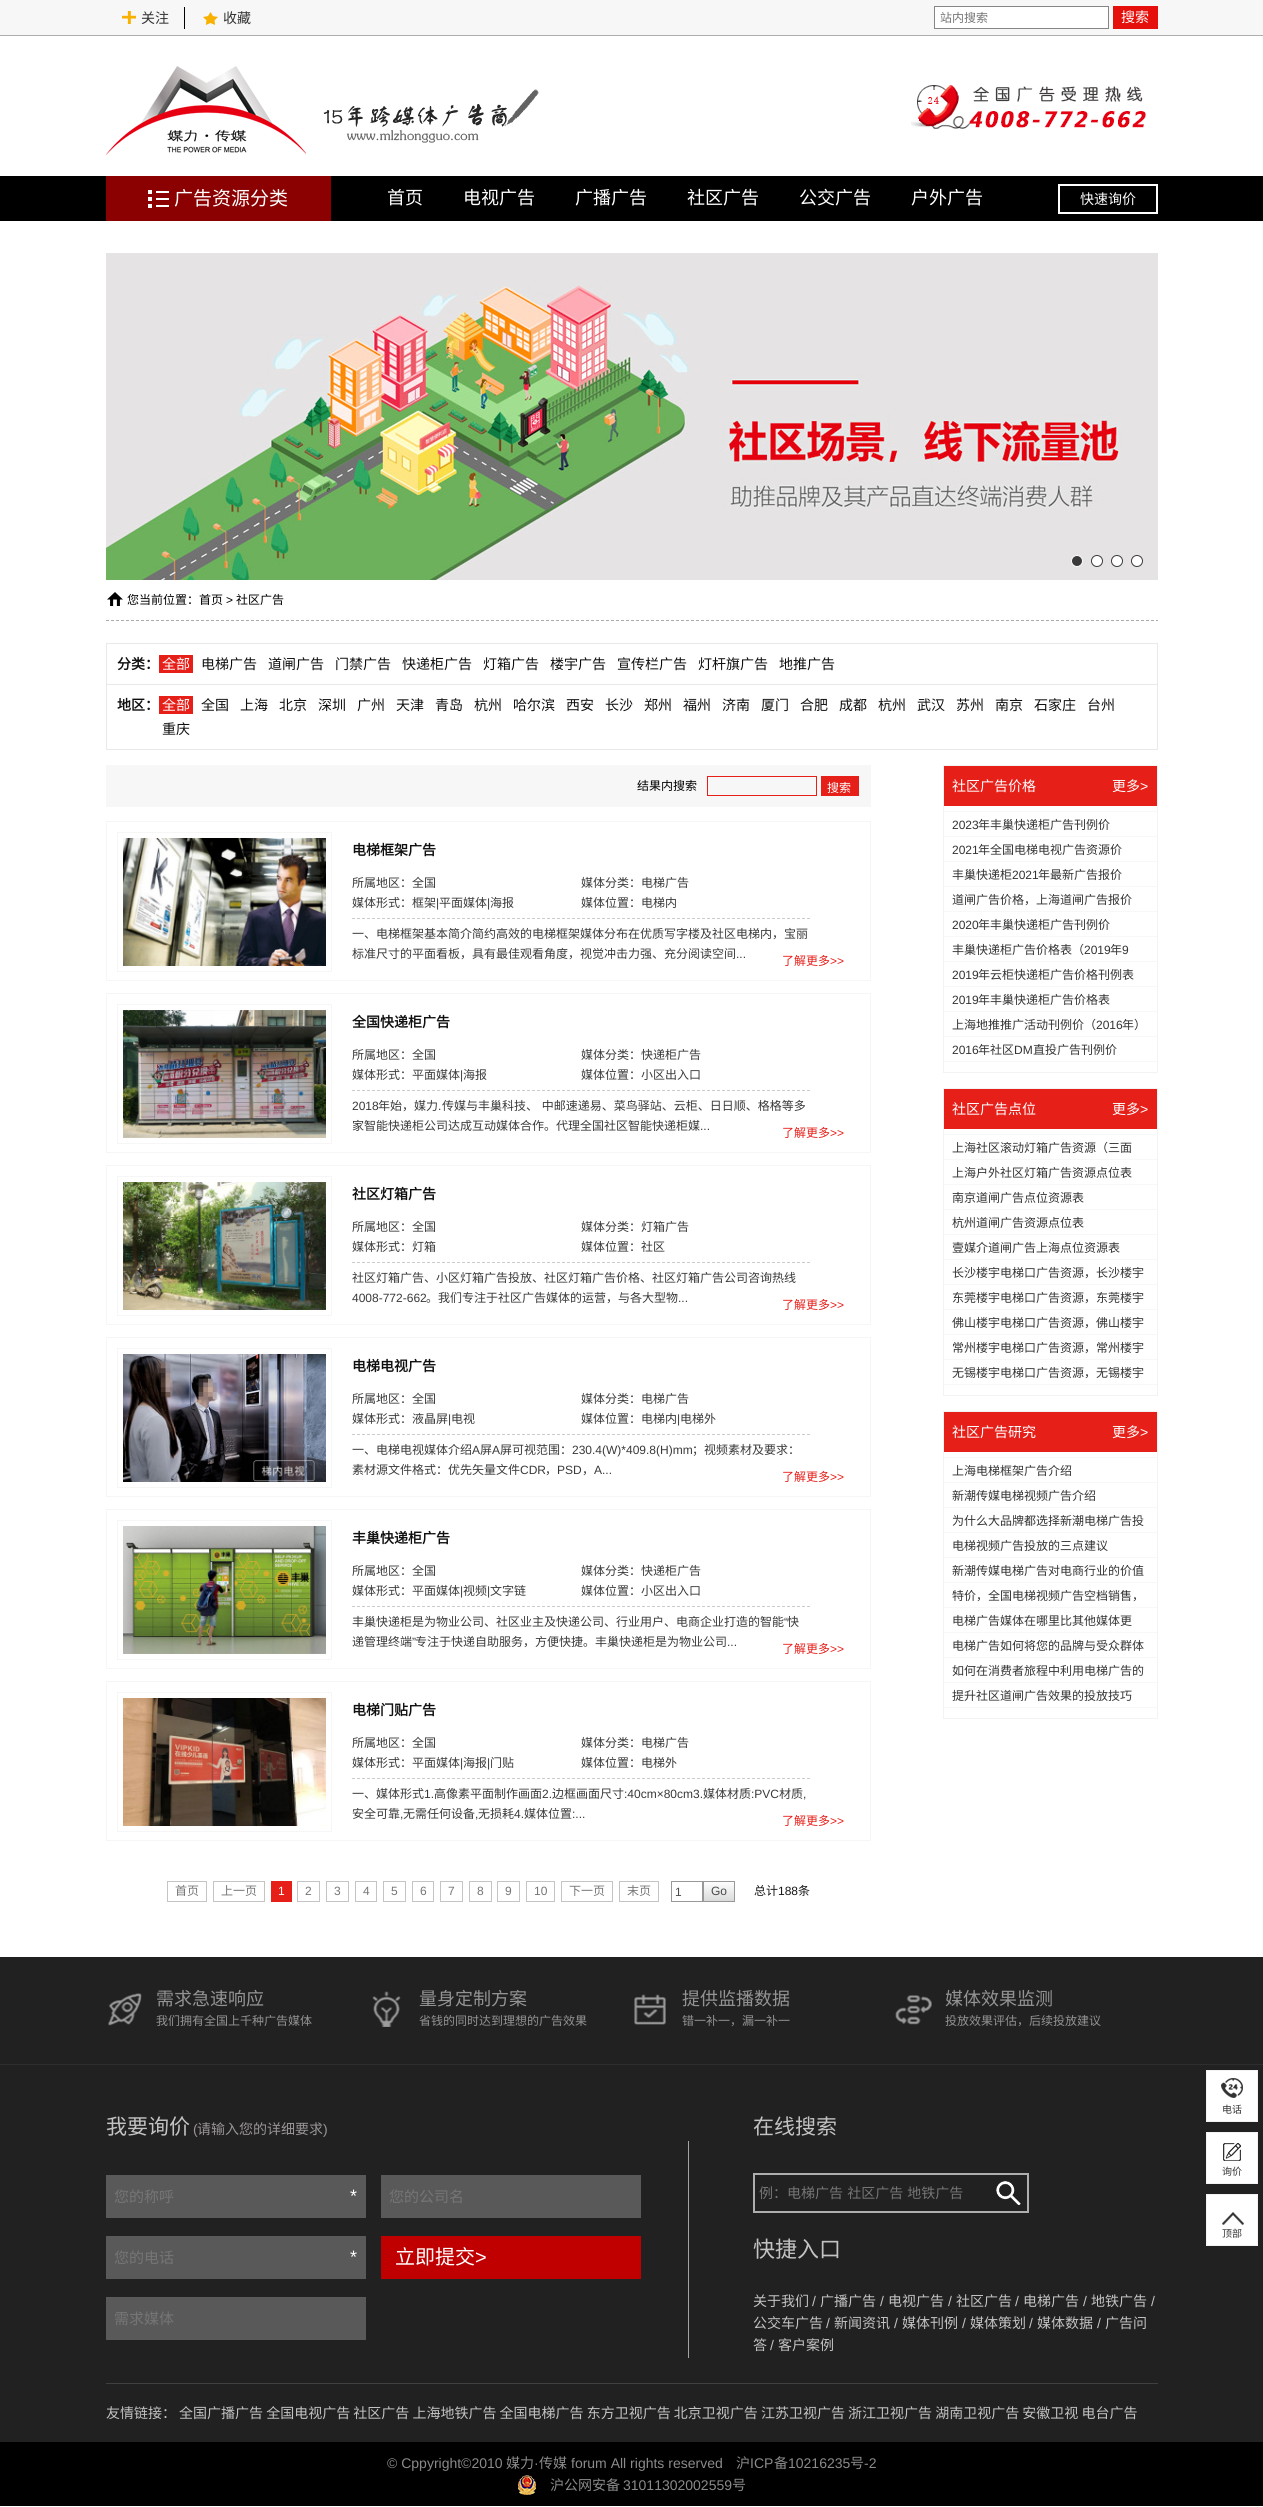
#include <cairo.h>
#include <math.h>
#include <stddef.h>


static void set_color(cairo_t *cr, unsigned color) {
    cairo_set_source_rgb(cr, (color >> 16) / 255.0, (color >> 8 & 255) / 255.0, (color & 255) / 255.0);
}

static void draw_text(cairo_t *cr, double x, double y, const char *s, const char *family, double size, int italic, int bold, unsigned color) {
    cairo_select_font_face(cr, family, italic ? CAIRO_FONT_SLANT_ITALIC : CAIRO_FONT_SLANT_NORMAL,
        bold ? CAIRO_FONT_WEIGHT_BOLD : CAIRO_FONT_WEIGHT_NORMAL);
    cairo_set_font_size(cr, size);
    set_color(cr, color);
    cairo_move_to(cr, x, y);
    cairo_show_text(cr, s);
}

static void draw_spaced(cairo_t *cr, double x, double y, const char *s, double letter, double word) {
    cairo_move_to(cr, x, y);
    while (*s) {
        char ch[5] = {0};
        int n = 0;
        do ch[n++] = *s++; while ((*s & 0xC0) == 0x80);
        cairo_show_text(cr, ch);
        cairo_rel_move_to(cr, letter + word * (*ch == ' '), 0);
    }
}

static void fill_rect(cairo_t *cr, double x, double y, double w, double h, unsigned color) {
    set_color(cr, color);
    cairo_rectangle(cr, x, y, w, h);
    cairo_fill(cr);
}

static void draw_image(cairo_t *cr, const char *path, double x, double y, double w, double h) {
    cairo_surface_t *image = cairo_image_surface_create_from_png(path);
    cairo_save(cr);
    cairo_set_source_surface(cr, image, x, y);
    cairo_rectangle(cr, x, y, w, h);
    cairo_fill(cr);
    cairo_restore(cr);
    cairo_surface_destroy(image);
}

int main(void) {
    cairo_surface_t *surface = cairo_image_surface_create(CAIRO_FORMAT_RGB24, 1263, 2507);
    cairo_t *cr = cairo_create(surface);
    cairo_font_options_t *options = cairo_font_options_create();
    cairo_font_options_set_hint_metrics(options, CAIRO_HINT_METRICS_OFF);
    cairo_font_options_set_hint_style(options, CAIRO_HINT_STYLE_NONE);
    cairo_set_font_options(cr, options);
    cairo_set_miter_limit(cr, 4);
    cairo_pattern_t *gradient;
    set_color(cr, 0xFFFFFF);
    cairo_paint(cr);
    fill_rect(cr, 0, 0, 1263, 35, 0xF7F7F7);
    fill_rect(cr, 0, 35, 1263, 1, 0xAEAEAE);
    fill_rect(cr, 184, 7, 1, 22, 0x000000);
    draw_image(cr, "assets/img1.png", 122, 11, 14, 13);
    draw_text(cr, 141, 23, "关注", "Noto Sans CJK SC", 14, 0, 0, 0x333333);
    draw_image(cr, "assets/img2.png", 203, 12, 15, 13);
    draw_text(cr, 223, 23, "收藏", "Noto Sans CJK SC", 14, 0, 0, 0x333333);
    set_color(cr, 0xFFFFFF);
    cairo_rectangle(cr, 934.5, 6.5, 174, 22);
    cairo_fill_preserve(cr);
    set_color(cr, 0x868686);
    cairo_set_line_width(cr, 1);
    cairo_stroke(cr);
    draw_text(cr, 940, 22, "站内搜索", "Noto Sans CJK SC", 12, 0, 0, 0x757575);
    fill_rect(cr, 1113, 6, 45, 23, 0xE5100B);
    draw_text(cr, 1121, 22, "搜索", "Noto Sans CJK SC", 14, 0, 0, 0xFFFFFF);
    draw_image(cr, "assets/img3.png", 106, 66, 200, 89);
    draw_image(cr, "assets/img4.png", 323, 89, 216, 54);
    draw_image(cr, "assets/img5.png", 911, 85, 235, 44);
    fill_rect(cr, 0, 176, 1263, 45, 0x000000);
    fill_rect(cr, 106, 176, 225, 45, 0x8B0000);
    draw_image(cr, "assets/img6.png", 148, 190, 21, 18);
    draw_text(cr, 174, 205, "广告资源分类", "Noto Sans CJK SC", 19, 0, 0, 0xFFFFFF);
    draw_text(cr, 387, 204, "首页", "Noto Sans CJK SC", 18, 0, 0, 0xFFFFFF);
    draw_text(cr, 463, 204, "电视广告", "Noto Sans CJK SC", 18, 0, 0, 0xFFFFFF);
    draw_text(cr, 575, 204, "广播广告", "Noto Sans CJK SC", 18, 0, 0, 0xFFFFFF);
    draw_text(cr, 687, 204, "社区广告", "Noto Sans CJK SC", 18, 0, 0, 0xFFFFFF);
    draw_text(cr, 799, 204, "公交广告", "Noto Sans CJK SC", 18, 0, 0, 0xFFFFFF);
    draw_text(cr, 911, 204, "户外广告", "Noto Sans CJK SC", 18, 0, 0, 0xFFFFFF);
    cairo_rectangle(cr, 1059, 185, 98, 28);
    cairo_set_line_width(cr, 2);
    cairo_stroke(cr);
    draw_text(cr, 1080, 204, "快速询价", "Noto Sans CJK SC", 14, 0, 0, 0xFFFFFF);
    draw_image(cr, "assets/img7.png", 106, 253, 1052, 327);
    set_color(cr, 0x3A3A3A);
    cairo_arc(cr, 1077, 561, 5.5, 0, 2 * M_PI);
    cairo_fill_preserve(cr);
    set_color(cr, 0xFFFFFF);
    cairo_set_line_width(cr, 1);
    cairo_stroke(cr);
    cairo_arc(cr, 1097, 561, 5.5, 0, 2 * M_PI);
    cairo_fill_preserve(cr);
    set_color(cr, 0x3A3A3A);
    cairo_stroke(cr);
    set_color(cr, 0xFFFFFF);
    cairo_arc(cr, 1117, 561, 5.5, 0, 2 * M_PI);
    cairo_fill_preserve(cr);
    set_color(cr, 0x3A3A3A);
    cairo_stroke(cr);
    set_color(cr, 0xFFFFFF);
    cairo_arc(cr, 1137, 561, 5.5, 0, 2 * M_PI);
    cairo_fill_preserve(cr);
    set_color(cr, 0x3A3A3A);
    cairo_stroke(cr);
    cairo_new_path(cr);
    cairo_move_to(cr, 106, 620.5);
    cairo_line_to(cr, 1158, 620.5);
    set_color(cr, 0xAAAAAA);
    cairo_set_dash(cr, (double[]){3, 2}, 2, 0);
    cairo_stroke(cr);
    draw_image(cr, "assets/img8.png", 107, 592, 16, 14);
    draw_text(cr, 127, 604, "您当前位置：首页", "Noto Sans CJK SC", 12, 0, 0, 0x000000);
    draw_text(cr, 226, 604, ">", "Liberation Sans", 12, 0, 0, 0x000000);
    draw_text(cr, 236, 604, "社区广告", "Noto Sans CJK SC", 12, 0, 0, 0x000000);
    cairo_rectangle(cr, 106.5, 643.5, 1051, 106);
    set_color(cr, 0xE9E9E9);
    cairo_set_dash(cr, NULL, 0, 0);
    cairo_stroke(cr);
    fill_rect(cr, 107, 684, 1050, 1, 0xE9E9E9);
    draw_text(cr, 117, 669, "分类：", "Noto Sans CJK SC", 14, 0, 1, 0x0F0F0F);
    fill_rect(cr, 159, 655, 34, 18, 0xE71F19);
    draw_text(cr, 162, 669, "全部", "Noto Sans CJK SC", 14, 0, 0, 0xFFFFFF);
    draw_text(cr, 201, 669, "电梯广告", "Noto Sans CJK SC", 14, 0, 0, 0x0F0F0F);
    draw_text(cr, 268, 669, "道闸广告", "Noto Sans CJK SC", 14, 0, 0, 0x0F0F0F);
    draw_text(cr, 335, 669, "门禁广告", "Noto Sans CJK SC", 14, 0, 0, 0x0F0F0F);
    draw_text(cr, 402, 669, "快递柜广告", "Noto Sans CJK SC", 14, 0, 0, 0x0F0F0F);
    draw_text(cr, 483, 669, "灯箱广告", "Noto Sans CJK SC", 14, 0, 0, 0x0F0F0F);
    draw_text(cr, 550, 669, "楼宇广告", "Noto Sans CJK SC", 14, 0, 0, 0x0F0F0F);
    draw_text(cr, 617, 669, "宣传栏广告", "Noto Sans CJK SC", 14, 0, 0, 0x0F0F0F);
    draw_text(cr, 698, 669, "灯杆旗广告", "Noto Sans CJK SC", 14, 0, 0, 0x0F0F0F);
    draw_text(cr, 779, 669, "地推广告", "Noto Sans CJK SC", 14, 0, 0, 0x0F0F0F);
    draw_text(cr, 117, 710, "地区：", "Noto Sans CJK SC", 14, 0, 1, 0x0F0F0F);
    fill_rect(cr, 159, 696, 34, 18, 0xE71F19);
    draw_text(cr, 162, 710, "全部", "Noto Sans CJK SC", 14, 0, 0, 0xFFFFFF);
    draw_text(cr, 201, 710, "全国", "Noto Sans CJK SC", 14, 0, 0, 0x0F0F0F);
    draw_text(cr, 240, 710, "上海", "Noto Sans CJK SC", 14, 0, 0, 0x0F0F0F);
    draw_text(cr, 279, 710, "北京", "Noto Sans CJK SC", 14, 0, 0, 0x0F0F0F);
    draw_text(cr, 318, 710, "深圳", "Noto Sans CJK SC", 14, 0, 0, 0x0F0F0F);
    draw_text(cr, 357, 710, "广州", "Noto Sans CJK SC", 14, 0, 0, 0x0F0F0F);
    draw_text(cr, 396, 710, "天津", "Noto Sans CJK SC", 14, 0, 0, 0x0F0F0F);
    draw_text(cr, 435, 710, "青岛", "Noto Sans CJK SC", 14, 0, 0, 0x0F0F0F);
    draw_text(cr, 474, 710, "杭州", "Noto Sans CJK SC", 14, 0, 0, 0x0F0F0F);
    draw_text(cr, 513, 710, "哈尔滨", "Noto Sans CJK SC", 14, 0, 0, 0x0F0F0F);
    draw_text(cr, 566, 710, "西安", "Noto Sans CJK SC", 14, 0, 0, 0x0F0F0F);
    draw_text(cr, 605, 710, "长沙", "Noto Sans CJK SC", 14, 0, 0, 0x0F0F0F);
    draw_text(cr, 644, 710, "郑州", "Noto Sans CJK SC", 14, 0, 0, 0x0F0F0F);
    draw_text(cr, 683, 710, "福州", "Noto Sans CJK SC", 14, 0, 0, 0x0F0F0F);
    draw_text(cr, 722, 710, "济南", "Noto Sans CJK SC", 14, 0, 0, 0x0F0F0F);
    draw_text(cr, 761, 710, "厦门", "Noto Sans CJK SC", 14, 0, 0, 0x0F0F0F);
    draw_text(cr, 800, 710, "合肥", "Noto Sans CJK SC", 14, 0, 0, 0x0F0F0F);
    draw_text(cr, 839, 710, "成都", "Noto Sans CJK SC", 14, 0, 0, 0x0F0F0F);
    draw_text(cr, 878, 710, "杭州", "Noto Sans CJK SC", 14, 0, 0, 0x0F0F0F);
    draw_text(cr, 917, 710, "武汉", "Noto Sans CJK SC", 14, 0, 0, 0x0F0F0F);
    draw_text(cr, 956, 710, "苏州", "Noto Sans CJK SC", 14, 0, 0, 0x0F0F0F);
    draw_text(cr, 995, 710, "南京", "Noto Sans CJK SC", 14, 0, 0, 0x0F0F0F);
    draw_text(cr, 1034, 710, "石家庄", "Noto Sans CJK SC", 14, 0, 0, 0x0F0F0F);
    draw_text(cr, 1087, 710, "台州", "Noto Sans CJK SC", 14, 0, 0, 0x0F0F0F);
    draw_text(cr, 162, 734, "重庆", "Noto Sans CJK SC", 14, 0, 0, 0x0F0F0F);
    fill_rect(cr, 106, 765, 765, 42, 0xF7F7F7);
    draw_text(cr, 637, 790, "结果内搜索", "Noto Sans CJK SC", 12, 0, 0, 0x000000);
    cairo_rectangle(cr, 707.5, 776.5, 109, 19);
    set_color(cr, 0xE71F19);
    cairo_stroke(cr);
    fill_rect(cr, 821, 776, 38, 20, 0xE71F19);
    draw_text(cr, 827, 792, "搜索", "Noto Sans CJK SC", 12, 0, 0, 0xFFFFFF);
    cairo_rectangle(cr, 106.5, 821.5, 764, 159);
    set_color(cr, 0xF6F6F6);
    cairo_stroke(cr);
    cairo_rectangle(cr, 117.5, 832.5, 214, 139);
    cairo_stroke(cr);
    draw_image(cr, "assets/img9.png", 123, 838, 203, 128);
    draw_text(cr, 352, 855, "电梯框架广告", "Noto Sans CJK SC", 14, 0, 1, 0x0F0F0F);
    cairo_new_path(cr);
    cairo_move_to(cr, 352, 918.5);
    cairo_line_to(cr, 810, 918.5);
    set_color(cr, 0xCBCBCB);
    cairo_set_dash(cr, (double[]){3, 2}, 2, 0);
    cairo_stroke(cr);
    draw_text(cr, 352, 887, "所属地区：全国", "Noto Sans CJK SC", 12, 0, 0, 0x393939);
    draw_text(cr, 581, 887, "媒体分类：电梯广告", "Noto Sans CJK SC", 12, 0, 0, 0x393939);
    draw_text(cr, 352, 907, "媒体形式：框架", "Noto Sans CJK SC", 12, 0, 0, 0x393939);
    draw_text(cr, 436, 907, "|", "Liberation Sans", 12, 0, 0, 0x393939);
    draw_text(cr, 439, 907, "平面媒体", "Noto Sans CJK SC", 12, 0, 0, 0x393939);
    draw_text(cr, 487, 907, "|", "Liberation Sans", 12, 0, 0, 0x393939);
    draw_text(cr, 490, 907, "海报", "Noto Sans CJK SC", 12, 0, 0, 0x393939);
    draw_text(cr, 581, 907, "媒体位置：电梯内", "Noto Sans CJK SC", 12, 0, 0, 0x393939);
    draw_text(cr, 352, 938, "一、电梯框架基本简介简约高效的电梯框架媒体分布在优质写字楼及社区电梯内，宝丽", "Noto Sans CJK SC", 12, 0, 0, 0x393939);
    draw_text(cr, 352, 958, "标准尺寸的平面看板，具有最佳观看角度，视觉冲击力强、充分阅读空间", "Noto Sans CJK SC", 12, 0, 0, 0x393939);
    draw_text(cr, 736, 958, "...", "Liberation Sans", 12, 0, 0, 0x393939);
    draw_text(cr, 782, 965, "了解更多", "Noto Sans CJK SC", 12, 0, 0, 0xE71F19);
    draw_text(cr, 830, 965, ">>", "Liberation Sans", 12, 0, 0, 0xE71F19);
    cairo_rectangle(cr, 106.5, 993.5, 764, 159);
    set_color(cr, 0xF6F6F6);
    cairo_set_dash(cr, NULL, 0, 0);
    cairo_stroke(cr);
    cairo_rectangle(cr, 117.5, 1004.5, 214, 139);
    cairo_stroke(cr);
    draw_image(cr, "assets/img10.png", 123, 1010, 203, 128);
    draw_text(cr, 352, 1027, "全国快递柜广告", "Noto Sans CJK SC", 14, 0, 1, 0x0F0F0F);
    cairo_new_path(cr);
    cairo_move_to(cr, 352, 1090.5);
    cairo_line_to(cr, 810, 1090.5);
    set_color(cr, 0xCBCBCB);
    cairo_set_dash(cr, (double[]){3, 2}, 2, 0);
    cairo_stroke(cr);
    draw_text(cr, 352, 1059, "所属地区：全国", "Noto Sans CJK SC", 12, 0, 0, 0x393939);
    draw_text(cr, 581, 1059, "媒体分类：快递柜广告", "Noto Sans CJK SC", 12, 0, 0, 0x393939);
    draw_text(cr, 352, 1079, "媒体形式：平面媒体", "Noto Sans CJK SC", 12, 0, 0, 0x393939);
    draw_text(cr, 460, 1079, "|", "Liberation Sans", 12, 0, 0, 0x393939);
    draw_text(cr, 463, 1079, "海报", "Noto Sans CJK SC", 12, 0, 0, 0x393939);
    draw_text(cr, 581, 1079, "媒体位置：小区出入口", "Noto Sans CJK SC", 12, 0, 0, 0x393939);
    draw_text(cr, 352, 1110, "2018", "Liberation Sans", 12, 0, 0, 0x393939);
    draw_text(cr, 378, 1110, "年始，媒力", "Noto Sans CJK SC", 12, 0, 0, 0x393939);
    draw_text(cr, 438, 1110, ".", "Liberation Sans", 12, 0, 0, 0x393939);
    cairo_select_font_face(cr, "Noto Sans CJK SC", CAIRO_FONT_SLANT_NORMAL, CAIRO_FONT_WEIGHT_NORMAL);
    draw_spaced(cr, 442, 1110, "传媒与丰巢科技、 中邮速递易、菜鸟驿站、云柜、日日顺、格格等多", 0, 1);
    draw_text(cr, 352, 1130, "家智能快递柜公司达成互动媒体合作。代理全国社区智能快递柜媒", "Noto Sans CJK SC", 12, 0, 0, 0x393939);
    draw_text(cr, 700, 1130, "...", "Liberation Sans", 12, 0, 0, 0x393939);
    draw_text(cr, 782, 1137, "了解更多", "Noto Sans CJK SC", 12, 0, 0, 0xE71F19);
    draw_text(cr, 830, 1137, ">>", "Liberation Sans", 12, 0, 0, 0xE71F19);
    cairo_rectangle(cr, 106.5, 1165.5, 764, 159);
    set_color(cr, 0xF6F6F6);
    cairo_set_dash(cr, NULL, 0, 0);
    cairo_stroke(cr);
    cairo_rectangle(cr, 117.5, 1176.5, 214, 139);
    cairo_stroke(cr);
    draw_image(cr, "assets/img11.png", 123, 1182, 203, 128);
    draw_text(cr, 352, 1199, "社区灯箱广告", "Noto Sans CJK SC", 14, 0, 1, 0x0F0F0F);
    cairo_new_path(cr);
    cairo_move_to(cr, 352, 1262.5);
    cairo_line_to(cr, 810, 1262.5);
    set_color(cr, 0xCBCBCB);
    cairo_set_dash(cr, (double[]){3, 2}, 2, 0);
    cairo_stroke(cr);
    draw_text(cr, 352, 1231, "所属地区：全国", "Noto Sans CJK SC", 12, 0, 0, 0x393939);
    draw_text(cr, 581, 1231, "媒体分类：灯箱广告", "Noto Sans CJK SC", 12, 0, 0, 0x393939);
    draw_text(cr, 352, 1251, "媒体形式：灯箱", "Noto Sans CJK SC", 12, 0, 0, 0x393939);
    draw_text(cr, 581, 1251, "媒体位置：社区", "Noto Sans CJK SC", 12, 0, 0, 0x393939);
    draw_text(cr, 352, 1282, "社区灯箱广告、小区灯箱广告投放、社区灯箱广告价格、社区灯箱广告公司咨询热线", "Noto Sans CJK SC", 12, 0, 0, 0x393939);
    draw_text(cr, 352, 1302, "4008-772-662", "Liberation Sans", 12, 0, 0, 0x393939);
    draw_text(cr, 426, 1302, "。我们专注于社区广告媒体的运营，与各大型物", "Noto Sans CJK SC", 12, 0, 0, 0x393939);
    draw_text(cr, 678, 1302, "...", "Liberation Sans", 12, 0, 0, 0x393939);
    draw_text(cr, 782, 1309, "了解更多", "Noto Sans CJK SC", 12, 0, 0, 0xE71F19);
    draw_text(cr, 830, 1309, ">>", "Liberation Sans", 12, 0, 0, 0xE71F19);
    cairo_rectangle(cr, 106.5, 1337.5, 764, 159);
    set_color(cr, 0xF6F6F6);
    cairo_set_dash(cr, NULL, 0, 0);
    cairo_stroke(cr);
    cairo_rectangle(cr, 117.5, 1348.5, 214, 139);
    cairo_stroke(cr);
    draw_image(cr, "assets/img12.png", 123, 1354, 203, 128);
    draw_text(cr, 352, 1371, "电梯电视广告", "Noto Sans CJK SC", 14, 0, 1, 0x0F0F0F);
    cairo_new_path(cr);
    cairo_move_to(cr, 352, 1434.5);
    cairo_line_to(cr, 810, 1434.5);
    set_color(cr, 0xCBCBCB);
    cairo_set_dash(cr, (double[]){3, 2}, 2, 0);
    cairo_stroke(cr);
    draw_text(cr, 352, 1403, "所属地区：全国", "Noto Sans CJK SC", 12, 0, 0, 0x393939);
    draw_text(cr, 581, 1403, "媒体分类：电梯广告", "Noto Sans CJK SC", 12, 0, 0, 0x393939);
    draw_text(cr, 352, 1423, "媒体形式：液晶屏", "Noto Sans CJK SC", 12, 0, 0, 0x393939);
    draw_text(cr, 448, 1423, "|", "Liberation Sans", 12, 0, 0, 0x393939);
    draw_text(cr, 451, 1423, "电视", "Noto Sans CJK SC", 12, 0, 0, 0x393939);
    draw_text(cr, 581, 1423, "媒体位置：电梯内", "Noto Sans CJK SC", 12, 0, 0, 0x393939);
    draw_text(cr, 677, 1423, "|", "Liberation Sans", 12, 0, 0, 0x393939);
    draw_text(cr, 680, 1423, "电梯外", "Noto Sans CJK SC", 12, 0, 0, 0x393939);
    draw_text(cr, 352, 1454, "一、电梯电视媒体介绍", "Noto Sans CJK SC", 12, 0, 0, 0x393939);
    draw_text(cr, 472, 1454, "A", "Liberation Sans", 12, 0, 0, 0x393939);
    draw_text(cr, 480, 1454, "屏", "Noto Sans CJK SC", 12, 0, 0, 0x393939);
    draw_text(cr, 492, 1454, "A", "Liberation Sans", 12, 0, 0, 0x393939);
    draw_text(cr, 500, 1454, "屏可视范围：", "Noto Sans CJK SC", 12, 0, 0, 0x393939);
    draw_text(cr, 572, 1454, "230.4(W)*409.8(H)mm", "Liberation Sans", 12, 0, 0, 0x393939);
    draw_text(cr, 692, 1454, "；视频素材及要求：", "Noto Sans CJK SC", 12, 0, 0, 0x393939);
    draw_text(cr, 352, 1474, "素材源文件格式：优先矢量文件", "Noto Sans CJK SC", 12, 0, 0, 0x393939);
    draw_text(cr, 520, 1474, "CDR", "Liberation Sans", 12, 0, 0, 0x393939);
    draw_text(cr, 545, 1474, "，", "Noto Sans CJK SC", 12, 0, 0, 0x393939);
    draw_text(cr, 557, 1474, "PSD", "Liberation Sans", 12, 0, 0, 0x393939);
    draw_text(cr, 582, 1474, "，", "Noto Sans CJK SC", 12, 0, 0, 0x393939);
    draw_text(cr, 594, 1474, "A...", "Liberation Sans", 12, 0, 0, 0x393939);
    draw_text(cr, 782, 1481, "了解更多", "Noto Sans CJK SC", 12, 0, 0, 0xE71F19);
    draw_text(cr, 830, 1481, ">>", "Liberation Sans", 12, 0, 0, 0xE71F19);
    cairo_rectangle(cr, 106.5, 1509.5, 764, 159);
    set_color(cr, 0xF6F6F6);
    cairo_set_dash(cr, NULL, 0, 0);
    cairo_stroke(cr);
    cairo_rectangle(cr, 117.5, 1520.5, 214, 139);
    cairo_stroke(cr);
    draw_image(cr, "assets/img13.png", 123, 1526, 203, 128);
    draw_text(cr, 352, 1543, "丰巢快递柜广告", "Noto Sans CJK SC", 14, 0, 1, 0x0F0F0F);
    cairo_new_path(cr);
    cairo_move_to(cr, 352, 1606.5);
    cairo_line_to(cr, 810, 1606.5);
    set_color(cr, 0xCBCBCB);
    cairo_set_dash(cr, (double[]){3, 2}, 2, 0);
    cairo_stroke(cr);
    draw_text(cr, 352, 1575, "所属地区：全国", "Noto Sans CJK SC", 12, 0, 0, 0x393939);
    draw_text(cr, 581, 1575, "媒体分类：快递柜广告", "Noto Sans CJK SC", 12, 0, 0, 0x393939);
    draw_text(cr, 352, 1595, "媒体形式：平面媒体", "Noto Sans CJK SC", 12, 0, 0, 0x393939);
    draw_text(cr, 460, 1595, "|", "Liberation Sans", 12, 0, 0, 0x393939);
    draw_text(cr, 463, 1595, "视频", "Noto Sans CJK SC", 12, 0, 0, 0x393939);
    draw_text(cr, 487, 1595, "|", "Liberation Sans", 12, 0, 0, 0x393939);
    draw_text(cr, 490, 1595, "文字链", "Noto Sans CJK SC", 12, 0, 0, 0x393939);
    draw_text(cr, 581, 1595, "媒体位置：小区出入口", "Noto Sans CJK SC", 12, 0, 0, 0x393939);
    draw_text(cr, 352, 1626, "丰巢快递柜是为物业公司、社区业主及快递公司、行业用户、电商企业打造的智能", "Noto Sans CJK SC", 12, 0, 0, 0x393939);
    draw_text(cr, 784, 1626, "“", "Liberation Sans", 12, 0, 0, 0x393939);
    draw_text(cr, 787, 1626, "快", "Noto Sans CJK SC", 12, 0, 0, 0x393939);
    draw_text(cr, 352, 1646, "递管理终端", "Noto Sans CJK SC", 12, 0, 0, 0x393939);
    draw_text(cr, 412, 1646, "”", "Liberation Sans", 12, 0, 0, 0x393939);
    draw_text(cr, 415, 1646, "专注于快递自助服务，方便快捷。丰巢快递柜是为物业公司", "Noto Sans CJK SC", 12, 0, 0, 0x393939);
    draw_text(cr, 727, 1646, "...", "Liberation Sans", 12, 0, 0, 0x393939);
    draw_text(cr, 782, 1653, "了解更多", "Noto Sans CJK SC", 12, 0, 0, 0xE71F19);
    draw_text(cr, 830, 1653, ">>", "Liberation Sans", 12, 0, 0, 0xE71F19);
    cairo_rectangle(cr, 106.5, 1681.5, 764, 159);
    set_color(cr, 0xF6F6F6);
    cairo_set_dash(cr, NULL, 0, 0);
    cairo_stroke(cr);
    cairo_rectangle(cr, 117.5, 1692.5, 214, 139);
    cairo_stroke(cr);
    draw_image(cr, "assets/img14.png", 123, 1698, 203, 128);
    draw_text(cr, 352, 1715, "电梯门贴广告", "Noto Sans CJK SC", 14, 0, 1, 0x0F0F0F);
    cairo_new_path(cr);
    cairo_move_to(cr, 352, 1778.5);
    cairo_line_to(cr, 810, 1778.5);
    set_color(cr, 0xCBCBCB);
    cairo_set_dash(cr, (double[]){3, 2}, 2, 0);
    cairo_stroke(cr);
    draw_text(cr, 352, 1747, "所属地区：全国", "Noto Sans CJK SC", 12, 0, 0, 0x393939);
    draw_text(cr, 581, 1747, "媒体分类：电梯广告", "Noto Sans CJK SC", 12, 0, 0, 0x393939);
    draw_text(cr, 352, 1767, "媒体形式：平面媒体", "Noto Sans CJK SC", 12, 0, 0, 0x393939);
    draw_text(cr, 460, 1767, "|", "Liberation Sans", 12, 0, 0, 0x393939);
    draw_text(cr, 463, 1767, "海报", "Noto Sans CJK SC", 12, 0, 0, 0x393939);
    draw_text(cr, 487, 1767, "|", "Liberation Sans", 12, 0, 0, 0x393939);
    draw_text(cr, 490, 1767, "门贴", "Noto Sans CJK SC", 12, 0, 0, 0x393939);
    draw_text(cr, 581, 1767, "媒体位置：电梯外", "Noto Sans CJK SC", 12, 0, 0, 0x393939);
    draw_text(cr, 352, 1798, "一、媒体形式", "Noto Sans CJK SC", 12, 0, 0, 0x393939);
    draw_text(cr, 424, 1798, "1.", "Liberation Sans", 12, 0, 0, 0x393939);
    draw_text(cr, 434, 1798, "高像素平面制作画面", "Noto Sans CJK SC", 12, 0, 0, 0x393939);
    draw_text(cr, 542, 1798, "2.", "Liberation Sans", 12, 0, 0, 0x393939);
    draw_text(cr, 552, 1798, "边框画面尺寸", "Noto Sans CJK SC", 12, 0, 0, 0x393939);
    draw_text(cr, 624, 1798, ":40cm×80cm3.", "Liberation Sans", 12, 0, 0, 0x393939);
    draw_text(cr, 703, 1798, "媒体材质", "Noto Sans CJK SC", 12, 0, 0, 0x393939);
    draw_text(cr, 751, 1798, ":PVC", "Liberation Sans", 12, 0, 0, 0x393939);
    draw_text(cr, 779, 1798, "材质", "Noto Sans CJK SC", 12, 0, 0, 0x393939);
    draw_text(cr, 803, 1798, ",", "Liberation Sans", 12, 0, 0, 0x393939);
    draw_text(cr, 352, 1818, "安全可靠", "Noto Sans CJK SC", 12, 0, 0, 0x393939);
    draw_text(cr, 400, 1818, ",", "Liberation Sans", 12, 0, 0, 0x393939);
    draw_text(cr, 403, 1818, "无需任何设备", "Noto Sans CJK SC", 12, 0, 0, 0x393939);
    draw_text(cr, 475, 1818, ",", "Liberation Sans", 12, 0, 0, 0x393939);
    draw_text(cr, 478, 1818, "无损耗", "Noto Sans CJK SC", 12, 0, 0, 0x393939);
    draw_text(cr, 514, 1818, "4.", "Liberation Sans", 12, 0, 0, 0x393939);
    draw_text(cr, 524, 1818, "媒体位置", "Noto Sans CJK SC", 12, 0, 0, 0x393939);
    draw_text(cr, 572, 1818, ":...", "Liberation Sans", 12, 0, 0, 0x393939);
    draw_text(cr, 782, 1825, "了解更多", "Noto Sans CJK SC", 12, 0, 0, 0xE71F19);
    draw_text(cr, 830, 1825, ">>", "Liberation Sans", 12, 0, 0, 0xE71F19);
    cairo_rectangle(cr, 167.5, 1881.5, 39, 20);
    set_color(cr, 0xC4C4C4);
    cairo_set_dash(cr, NULL, 0, 0);
    cairo_stroke(cr);
    draw_text(cr, 175, 1895, "首页", "Noto Sans CJK SC", 12, 0, 0, 0x757575);
    cairo_rectangle(cr, 213.5, 1881.5, 51, 20);
    set_color(cr, 0xC4C4C4);
    cairo_stroke(cr);
    draw_text(cr, 221, 1895, "上一页", "Noto Sans CJK SC", 12, 0, 0, 0x757575);
    fill_rect(cr, 271, 1881, 21, 21, 0xE71F19);
    draw_text(cr, 278, 1895, "1", "Liberation Sans", 12, 0, 0, 0xFFFFFF);
    cairo_rectangle(cr, 297.5, 1881.5, 22, 20);
    set_color(cr, 0xC4C4C4);
    cairo_stroke(cr);
    draw_text(cr, 305, 1895, "2", "Liberation Sans", 12, 0, 0, 0x757575);
    cairo_rectangle(cr, 326.5, 1881.5, 22, 20);
    set_color(cr, 0xC4C4C4);
    cairo_stroke(cr);
    draw_text(cr, 334, 1895, "3", "Liberation Sans", 12, 0, 0, 0x757575);
    cairo_rectangle(cr, 355.5, 1881.5, 21, 20);
    set_color(cr, 0xC4C4C4);
    cairo_stroke(cr);
    draw_text(cr, 363, 1895, "4", "Liberation Sans", 12, 0, 0, 0x757575);
    cairo_rectangle(cr, 383.5, 1881.5, 22, 20);
    set_color(cr, 0xC4C4C4);
    cairo_stroke(cr);
    draw_text(cr, 391, 1895, "5", "Liberation Sans", 12, 0, 0, 0x757575);
    cairo_rectangle(cr, 412.5, 1881.5, 21, 20);
    set_color(cr, 0xC4C4C4);
    cairo_stroke(cr);
    draw_text(cr, 420, 1895, "6", "Liberation Sans", 12, 0, 0, 0x757575);
    cairo_rectangle(cr, 440.5, 1881.5, 22, 20);
    set_color(cr, 0xC4C4C4);
    cairo_stroke(cr);
    draw_text(cr, 448, 1895, "7", "Liberation Sans", 12, 0, 0, 0x757575);
    cairo_rectangle(cr, 469.5, 1881.5, 22, 20);
    set_color(cr, 0xC4C4C4);
    cairo_stroke(cr);
    draw_text(cr, 477, 1895, "8", "Liberation Sans", 12, 0, 0, 0x757575);
    cairo_rectangle(cr, 497.5, 1881.5, 22, 20);
    set_color(cr, 0xC4C4C4);
    cairo_stroke(cr);
    draw_text(cr, 505, 1895, "9", "Liberation Sans", 12, 0, 0, 0x757575);
    cairo_rectangle(cr, 526.5, 1881.5, 28, 20);
    set_color(cr, 0xC4C4C4);
    cairo_stroke(cr);
    draw_text(cr, 534, 1895, "10", "Liberation Sans", 12, 0, 0, 0x757575);
    cairo_rectangle(cr, 561.5, 1881.5, 51, 20);
    set_color(cr, 0xC4C4C4);
    cairo_stroke(cr);
    draw_text(cr, 569, 1895, "下一页", "Noto Sans CJK SC", 12, 0, 0, 0x757575);
    cairo_rectangle(cr, 619.5, 1881.5, 39, 20);
    set_color(cr, 0xC4C4C4);
    cairo_stroke(cr);
    draw_text(cr, 627, 1895, "末页", "Noto Sans CJK SC", 12, 0, 0, 0x757575);
    cairo_rectangle(cr, 671.5, 1881.5, 31, 20);
    set_color(cr, 0x989898);
    cairo_stroke(cr);
    draw_text(cr, 675, 1896, "1", "Liberation Sans", 12, 0, 0, 0x4A4A4A);
    gradient = cairo_pattern_create_linear(719, 1882, 719, 1901);
    cairo_pattern_add_color_stop_rgba(gradient, 0, 0.992, 0.996, 0.996, 1);
    cairo_pattern_add_color_stop_rgba(gradient, 1, 0.855, 0.855, 0.859, 1);
    cairo_set_source(cr, gradient);
    cairo_pattern_destroy(gradient);
    cairo_rectangle(cr, 704, 1882, 30, 19);
    cairo_fill(cr);
    cairo_rectangle(cr, 703.5, 1881.5, 31, 20);
    set_color(cr, 0x989898);
    cairo_stroke(cr);
    draw_text(cr, 711, 1895, "Go", "Liberation Sans", 12, 0, 0, 0x4A4A4A);
    draw_text(cr, 754, 1895, "总计", "Noto Sans CJK SC", 12, 0, 0, 0x171717);
    draw_text(cr, 778, 1895, "188", "Liberation Sans", 12, 0, 0, 0x171717);
    draw_text(cr, 798, 1895, "条", "Noto Sans CJK SC", 12, 0, 0, 0x171717);
    cairo_rectangle(cr, 943.5, 765.5, 214, 307);
    set_color(cr, 0xF3F3F3);
    cairo_stroke(cr);
    fill_rect(cr, 944, 766, 213, 40, 0xE71F19);
    draw_text(cr, 952, 791, "社区广告价格", "Noto Sans CJK SC", 14, 0, 0, 0xFFFFFF);
    draw_text(cr, 1112, 791, "更多", "Noto Sans CJK SC", 14, 0, 0, 0xFFFFFF);
    draw_text(cr, 1140, 791, ">", "Liberation Sans", 14, 0, 0, 0xFFFFFF);
    fill_rect(cr, 944, 811, 213, 1, 0xF8F8F8);
    fill_rect(cr, 944, 836, 213, 1, 0xF8F8F8);
    draw_text(cr, 952, 829, "2023", "Liberation Sans", 12, 0, 0, 0x333333);
    draw_text(cr, 978, 829, "年丰巢快递柜广告刊例价", "Noto Sans CJK SC", 12, 0, 0, 0x333333);
    fill_rect(cr, 944, 861, 213, 1, 0xF8F8F8);
    draw_text(cr, 952, 854, "2021", "Liberation Sans", 12, 0, 0, 0x333333);
    draw_text(cr, 978, 854, "年全国电梯电视广告资源价", "Noto Sans CJK SC", 12, 0, 0, 0x333333);
    fill_rect(cr, 944, 886, 213, 1, 0xF8F8F8);
    draw_text(cr, 952, 879, "丰巢快递柜", "Noto Sans CJK SC", 12, 0, 0, 0x333333);
    draw_text(cr, 1012, 879, "2021", "Liberation Sans", 12, 0, 0, 0x333333);
    draw_text(cr, 1038, 879, "年最新广告报价", "Noto Sans CJK SC", 12, 0, 0, 0x333333);
    fill_rect(cr, 944, 911, 213, 1, 0xF8F8F8);
    draw_text(cr, 952, 904, "道闸广告价格，上海道闸广告报价", "Noto Sans CJK SC", 12, 0, 0, 0x333333);
    fill_rect(cr, 944, 936, 213, 1, 0xF8F8F8);
    draw_text(cr, 952, 929, "2020", "Liberation Sans", 12, 0, 0, 0x333333);
    draw_text(cr, 978, 929, "年丰巢快递柜广告刊例价", "Noto Sans CJK SC", 12, 0, 0, 0x333333);
    fill_rect(cr, 944, 961, 213, 1, 0xF8F8F8);
    draw_text(cr, 952, 954, "丰巢快递柜广告价格表（", "Noto Sans CJK SC", 12, 0, 0, 0x333333);
    draw_text(cr, 1084, 954, "2019", "Liberation Sans", 12, 0, 0, 0x333333);
    draw_text(cr, 1110, 954, "年", "Noto Sans CJK SC", 12, 0, 0, 0x333333);
    draw_text(cr, 1122, 954, "9", "Liberation Sans", 12, 0, 0, 0x333333);
    fill_rect(cr, 944, 986, 213, 1, 0xF8F8F8);
    draw_text(cr, 952, 979, "2019", "Liberation Sans", 12, 0, 0, 0x333333);
    draw_text(cr, 978, 979, "年云柜快递柜广告价格刊例表", "Noto Sans CJK SC", 12, 0, 0, 0x333333);
    fill_rect(cr, 944, 1011, 213, 1, 0xF8F8F8);
    draw_text(cr, 952, 1004, "2019", "Liberation Sans", 12, 0, 0, 0x333333);
    draw_text(cr, 978, 1004, "年丰巢快递柜广告价格表", "Noto Sans CJK SC", 12, 0, 0, 0x333333);
    fill_rect(cr, 944, 1036, 213, 1, 0xF8F8F8);
    draw_text(cr, 952, 1029, "上海地推推广活动刊例价（", "Noto Sans CJK SC", 12, 0, 0, 0x333333);
    draw_text(cr, 1096, 1029, "2016", "Liberation Sans", 12, 0, 0, 0x333333);
    draw_text(cr, 1122, 1029, "年）", "Noto Sans CJK SC", 12, 0, 0, 0x333333);
    fill_rect(cr, 944, 1061, 213, 1, 0xF8F8F8);
    draw_text(cr, 952, 1054, "2016", "Liberation Sans", 12, 0, 0, 0x333333);
    draw_text(cr, 978, 1054, "年社区", "Noto Sans CJK SC", 12, 0, 0, 0x333333);
    draw_text(cr, 1014, 1054, "DM", "Liberation Sans", 12, 0, 0, 0x333333);
    draw_text(cr, 1033, 1054, "直投广告刊例价", "Noto Sans CJK SC", 12, 0, 0, 0x333333);
    cairo_rectangle(cr, 943.5, 1088.5, 214, 307);
    set_color(cr, 0xF3F3F3);
    cairo_stroke(cr);
    fill_rect(cr, 944, 1089, 213, 40, 0xE71F19);
    draw_text(cr, 952, 1114, "社区广告点位", "Noto Sans CJK SC", 14, 0, 0, 0xFFFFFF);
    draw_text(cr, 1112, 1114, "更多", "Noto Sans CJK SC", 14, 0, 0, 0xFFFFFF);
    draw_text(cr, 1140, 1114, ">", "Liberation Sans", 14, 0, 0, 0xFFFFFF);
    fill_rect(cr, 944, 1134, 213, 1, 0xF8F8F8);
    fill_rect(cr, 944, 1159, 213, 1, 0xF8F8F8);
    draw_text(cr, 952, 1152, "上海社区滚动灯箱广告资源（三面", "Noto Sans CJK SC", 12, 0, 0, 0x333333);
    fill_rect(cr, 944, 1184, 213, 1, 0xF8F8F8);
    draw_text(cr, 952, 1177, "上海户外社区灯箱广告资源点位表", "Noto Sans CJK SC", 12, 0, 0, 0x333333);
    fill_rect(cr, 944, 1209, 213, 1, 0xF8F8F8);
    draw_text(cr, 952, 1202, "南京道闸广告点位资源表", "Noto Sans CJK SC", 12, 0, 0, 0x333333);
    fill_rect(cr, 944, 1234, 213, 1, 0xF8F8F8);
    draw_text(cr, 952, 1227, "杭州道闸广告资源点位表", "Noto Sans CJK SC", 12, 0, 0, 0x333333);
    fill_rect(cr, 944, 1259, 213, 1, 0xF8F8F8);
    draw_text(cr, 952, 1252, "壹媒介道闸广告上海点位资源表", "Noto Sans CJK SC", 12, 0, 0, 0x333333);
    fill_rect(cr, 944, 1284, 213, 1, 0xF8F8F8);
    draw_text(cr, 952, 1277, "长沙楼宇电梯口广告资源，长沙楼宇", "Noto Sans CJK SC", 12, 0, 0, 0x333333);
    fill_rect(cr, 944, 1309, 213, 1, 0xF8F8F8);
    draw_text(cr, 952, 1302, "东莞楼宇电梯口广告资源，东莞楼宇", "Noto Sans CJK SC", 12, 0, 0, 0x333333);
    fill_rect(cr, 944, 1334, 213, 1, 0xF8F8F8);
    draw_text(cr, 952, 1327, "佛山楼宇电梯口广告资源，佛山楼宇", "Noto Sans CJK SC", 12, 0, 0, 0x333333);
    fill_rect(cr, 944, 1359, 213, 1, 0xF8F8F8);
    draw_text(cr, 952, 1352, "常州楼宇电梯口广告资源，常州楼宇", "Noto Sans CJK SC", 12, 0, 0, 0x333333);
    fill_rect(cr, 944, 1384, 213, 1, 0xF8F8F8);
    draw_text(cr, 952, 1377, "无锡楼宇电梯口广告资源，无锡楼宇", "Noto Sans CJK SC", 12, 0, 0, 0x333333);
    cairo_rectangle(cr, 943.5, 1411.5, 214, 307);
    set_color(cr, 0xF3F3F3);
    cairo_stroke(cr);
    fill_rect(cr, 944, 1412, 213, 40, 0xE71F19);
    draw_text(cr, 952, 1437, "社区广告研究", "Noto Sans CJK SC", 14, 0, 0, 0xFFFFFF);
    draw_text(cr, 1112, 1437, "更多", "Noto Sans CJK SC", 14, 0, 0, 0xFFFFFF);
    draw_text(cr, 1140, 1437, ">", "Liberation Sans", 14, 0, 0, 0xFFFFFF);
    fill_rect(cr, 944, 1457, 213, 1, 0xF8F8F8);
    fill_rect(cr, 944, 1482, 213, 1, 0xF8F8F8);
    draw_text(cr, 952, 1475, "上海电梯框架广告介绍", "Noto Sans CJK SC", 12, 0, 0, 0x333333);
    fill_rect(cr, 944, 1507, 213, 1, 0xF8F8F8);
    draw_text(cr, 952, 1500, "新潮传媒电梯视频广告介绍", "Noto Sans CJK SC", 12, 0, 0, 0x333333);
    fill_rect(cr, 944, 1532, 213, 1, 0xF8F8F8);
    draw_text(cr, 952, 1525, "为什么大品牌都选择新潮电梯广告投", "Noto Sans CJK SC", 12, 0, 0, 0x333333);
    fill_rect(cr, 944, 1557, 213, 1, 0xF8F8F8);
    draw_text(cr, 952, 1550, "电梯视频广告投放的三点建议", "Noto Sans CJK SC", 12, 0, 0, 0x333333);
    fill_rect(cr, 944, 1582, 213, 1, 0xF8F8F8);
    draw_text(cr, 952, 1575, "新潮传媒电梯广告对电商行业的价值", "Noto Sans CJK SC", 12, 0, 0, 0x333333);
    fill_rect(cr, 944, 1607, 213, 1, 0xF8F8F8);
    draw_text(cr, 952, 1600, "特价，全国电梯视频广告空档销售，", "Noto Sans CJK SC", 12, 0, 0, 0x333333);
    fill_rect(cr, 944, 1632, 213, 1, 0xF8F8F8);
    draw_text(cr, 952, 1625, "电梯广告媒体在哪里比其他媒体更", "Noto Sans CJK SC", 12, 0, 0, 0x333333);
    fill_rect(cr, 944, 1657, 213, 1, 0xF8F8F8);
    draw_text(cr, 952, 1650, "电梯广告如何将您的品牌与受众群体", "Noto Sans CJK SC", 12, 0, 0, 0x333333);
    fill_rect(cr, 944, 1682, 213, 1, 0xF8F8F8);
    draw_text(cr, 952, 1675, "如何在消费者旅程中利用电梯广告的", "Noto Sans CJK SC", 12, 0, 0, 0x333333);
    fill_rect(cr, 944, 1707, 213, 1, 0xF8F8F8);
    draw_text(cr, 952, 1700, "提升社区道闸广告效果的投放技巧", "Noto Sans CJK SC", 12, 0, 0, 0x333333);
    fill_rect(cr, 0, 1957, 1263, 485, 0x212121);
    fill_rect(cr, 0, 2064, 1263, 1, 0x2E2E2E);
    draw_image(cr, "assets/img15.png", 108, 1993, 34, 33);
    draw_text(cr, 156, 2005, "需求急速响应", "Noto Sans CJK SC", 18, 0, 0, 0x939393);
    draw_text(cr, 156, 2025, "我们拥有全国上千种广告媒体", "Noto Sans CJK SC", 12, 0, 0, 0x939393);
    draw_image(cr, "assets/img16.png", 372, 1991, 29, 36);
    draw_text(cr, 419, 2005, "量身定制方案", "Noto Sans CJK SC", 18, 0, 0, 0x939393);
    draw_text(cr, 419, 2025, "省钱的同时达到理想的广告效果", "Noto Sans CJK SC", 12, 0, 0, 0x939393);
    draw_image(cr, "assets/img17.png", 634, 1994, 32, 31);
    draw_text(cr, 682, 2005, "提供监播数据", "Noto Sans CJK SC", 18, 0, 0, 0x939393);
    draw_text(cr, 682, 2025, "错一补一，漏一补一", "Noto Sans CJK SC", 12, 0, 0, 0x939393);
    draw_image(cr, "assets/img18.png", 895, 1995, 37, 30);
    draw_text(cr, 945, 2005, "媒体效果监测", "Noto Sans CJK SC", 18, 0, 0, 0x939393);
    draw_text(cr, 945, 2025, "投放效果评估，后续投放建议", "Noto Sans CJK SC", 12, 0, 0, 0x939393);
    draw_text(cr, 106, 2134, "我要询价", "Noto Sans CJK SC", 21, 0, 0, 0xC3C3C3);
    draw_text(cr, 193, 2134, "(", "Liberation Sans", 14, 0, 0, 0x9A9595);
    draw_text(cr, 197, 2134, "请输入您的详细要求", "Noto Sans CJK SC", 14, 0, 0, 0x9A9595);
    draw_text(cr, 323, 2134, ")", "Liberation Sans", 14, 0, 0, 0x9A9595);
    fill_rect(cr, 106, 2175, 260, 43, 0x595959);
    draw_text(cr, 114, 2202, "您的称呼", "Noto Sans CJK SC", 15, 0, 0, 0x757575);
    draw_text(cr, 350, 2202, "*", "Liberation Sans", 18, 0, 0, 0xFFFFFF);
    fill_rect(cr, 381, 2175, 260, 43, 0x595959);
    draw_text(cr, 389, 2202, "您的公司名", "Noto Sans CJK SC", 15, 0, 0, 0x757575);
    fill_rect(cr, 106, 2236, 260, 43, 0x595959);
    draw_text(cr, 114, 2263, "您的电话", "Noto Sans CJK SC", 15, 0, 0, 0x757575);
    draw_text(cr, 350, 2263, "*", "Liberation Sans", 18, 0, 0, 0xFFFFFF);
    fill_rect(cr, 381, 2236, 260, 43, 0xC00000);
    draw_text(cr, 395, 2264, "立即提交", "Noto Sans CJK SC", 20, 0, 0, 0xFFFFFF);
    draw_text(cr, 475, 2264, ">", "Liberation Sans", 20, 0, 0, 0xFFFFFF);
    fill_rect(cr, 106, 2297, 260, 43, 0x595959);
    draw_text(cr, 114, 2324, "需求媒体", "Noto Sans CJK SC", 15, 0, 0, 0x757575);
    draw_text(cr, 753, 2134, "在线搜索", "Noto Sans CJK SC", 21, 0, 0, 0xC3C3C3);
    fill_rect(cr, 688, 2141, 1, 217, 0xA3A3A3);
    cairo_rectangle(cr, 754, 2174, 274, 38);
    set_color(cr, 0xAEAEAE);
    cairo_set_line_width(cr, 2);
    cairo_stroke(cr);
    cairo_set_font_size(cr, 14);
    set_color(cr, 0x757575);
    draw_spaced(cr, 759, 2198, "例：电梯广告 社区广告 地铁广告", 0, 1);
    draw_image(cr, "assets/img19.png", 996, 2181, 25, 24);
    draw_text(cr, 753, 2257, "快捷入口", "Noto Sans CJK SC", 22, 0, 0, 0xC3C3C3);
    draw_text(cr, 753, 2306, "关于我们", "Noto Sans CJK SC", 14, 0, 0, 0xC3C3C3);
    draw_text(cr, 812, 2306, "/", "Liberation Sans", 14, 0, 0, 0xC3C3C3);
    draw_text(cr, 820, 2306, "广播广告", "Noto Sans CJK SC", 14, 0, 0, 0xC3C3C3);
    draw_text(cr, 880, 2306, "/", "Liberation Sans", 14, 0, 0, 0xC3C3C3);
    draw_text(cr, 888, 2306, "电视广告", "Noto Sans CJK SC", 14, 0, 0, 0xC3C3C3);
    draw_text(cr, 948, 2306, "/", "Liberation Sans", 14, 0, 0, 0xC3C3C3);
    draw_text(cr, 956, 2306, "社区广告", "Noto Sans CJK SC", 14, 0, 0, 0xC3C3C3);
    draw_text(cr, 1015, 2306, "/", "Liberation Sans", 14, 0, 0, 0xC3C3C3);
    draw_text(cr, 1023, 2306, "电梯广告", "Noto Sans CJK SC", 14, 0, 0, 0xC3C3C3);
    draw_text(cr, 1083, 2306, "/", "Liberation Sans", 14, 0, 0, 0xC3C3C3);
    draw_text(cr, 1091, 2306, "地铁广告", "Noto Sans CJK SC", 14, 0, 0, 0xC3C3C3);
    draw_text(cr, 1151, 2306, "/", "Liberation Sans", 14, 0, 0, 0xC3C3C3);
    draw_text(cr, 753, 2328, "公交车广告", "Noto Sans CJK SC", 14, 0, 0, 0xC3C3C3);
    draw_text(cr, 826, 2328, "/", "Liberation Sans", 14, 0, 0, 0xC3C3C3);
    draw_text(cr, 834, 2328, "新闻资讯", "Noto Sans CJK SC", 14, 0, 0, 0xC3C3C3);
    draw_text(cr, 894, 2328, "/", "Liberation Sans", 14, 0, 0, 0xC3C3C3);
    draw_text(cr, 902, 2328, "媒体刊例", "Noto Sans CJK SC", 14, 0, 0, 0xC3C3C3);
    draw_text(cr, 962, 2328, "/", "Liberation Sans", 14, 0, 0, 0xC3C3C3);
    draw_text(cr, 970, 2328, "媒体策划", "Noto Sans CJK SC", 14, 0, 0, 0xC3C3C3);
    draw_text(cr, 1029, 2328, "/", "Liberation Sans", 14, 0, 0, 0xC3C3C3);
    draw_text(cr, 1037, 2328, "媒体数据", "Noto Sans CJK SC", 14, 0, 0, 0xC3C3C3);
    draw_text(cr, 1097, 2328, "/", "Liberation Sans", 14, 0, 0, 0xC3C3C3);
    draw_text(cr, 1105, 2328, "广告问", "Noto Sans CJK SC", 14, 0, 0, 0xC3C3C3);
    draw_text(cr, 753, 2350, "答", "Noto Sans CJK SC", 14, 0, 0, 0xC3C3C3);
    draw_text(cr, 770, 2350, "/", "Liberation Sans", 14, 0, 0, 0xC3C3C3);
    draw_text(cr, 778, 2350, "客户案例", "Noto Sans CJK SC", 14, 0, 0, 0xC3C3C3);
    fill_rect(cr, 106, 2383, 1052, 1, 0x404040);
    draw_text(cr, 106, 2418, "友情链接：", "Noto Sans CJK SC", 14, 0, 0, 0xC3C3C3);
    draw_text(cr, 179, 2418, "全国广播广告 全国电视广告 社区广告 上海地铁广告 全国电梯广告 东方卫视广告 北京卫视广告 江苏卫视广告 浙江卫视广告 湖南卫视广告 安徽卫视 电台广告", "Noto Sans CJK SC", 14, 0, 0, 0xC3C3C3);
    fill_rect(cr, 0, 2442, 1263, 64, 0x000000);
    draw_text(cr, 387, 2468, "© Cppyright©2010", "Liberation Sans", 14, 0, 0, 0x8A8A8A);
    draw_text(cr, 506, 2468, "媒力", "Noto Sans CJK SC", 14, 0, 0, 0x8A8A8A);
    draw_text(cr, 534, 2468, "·", "Liberation Sans", 14, 0, 0, 0x8A8A8A);
    draw_text(cr, 539, 2468, "传媒", "Noto Sans CJK SC", 14, 0, 0, 0x8A8A8A);
    draw_text(cr, 571, 2468, "forum All rights reserved", "Liberation Sans", 14, 0, 0, 0x8A8A8A);
    draw_text(cr, 736, 2468, "沪", "Noto Sans CJK SC", 14, 0, 0, 0x8A8A8A);
    draw_text(cr, 750, 2468, "ICP", "Liberation Sans", 14, 0, 0, 0x8A8A8A);
    draw_text(cr, 774, 2468, "备", "Noto Sans CJK SC", 14, 0, 0, 0x8A8A8A);
    draw_text(cr, 788, 2468, "10216235", "Liberation Sans", 14, 0, 0, 0x8A8A8A);
    draw_text(cr, 850, 2468, "号", "Noto Sans CJK SC", 14, 0, 0, 0x8A8A8A);
    draw_text(cr, 864, 2468, "-2", "Liberation Sans", 14, 0, 0, 0x8A8A8A);
    draw_image(cr, "assets/img20.png", 518, 2475, 18, 20);
    draw_text(cr, 550, 2490, "沪公网安备", "Noto Sans CJK SC", 14, 0, 0, 0x8A8A8A);
    draw_text(cr, 623, 2490, "31011302002559", "Liberation Sans", 14, 0, 0, 0x8A8A8A);
    draw_text(cr, 732, 2490, "号", "Noto Sans CJK SC", 14, 0, 0, 0x8A8A8A);
    fill_rect(cr, 1207, 2071, 50, 50, 0xFFFFFF);
    draw_image(cr, "assets/img21.png", 1221, 2078, 22, 20);
    cairo_rectangle(cr, 1206.5, 2070.5, 51, 51);
    set_color(cr, 0xF3F3F5);
    cairo_set_line_width(cr, 1);
    cairo_stroke(cr);
    draw_text(cr, 1222, 2113, "电话", "Noto Sans CJK SC", 10, 0, 0, 0x333333);
    fill_rect(cr, 1207, 2133, 50, 50, 0xFFFFFF);
    draw_image(cr, "assets/img22.png", 1223, 2143, 18, 18);
    cairo_rectangle(cr, 1206.5, 2132.5, 51, 51);
    set_color(cr, 0xF3F3F5);
    cairo_stroke(cr);
    draw_text(cr, 1222, 2175, "询价", "Noto Sans CJK SC", 10, 0, 0, 0x333333);
    fill_rect(cr, 1207, 2195, 50, 50, 0xFFFFFF);
    draw_image(cr, "assets/img23.png", 1222, 2212, 22, 13);
    cairo_rectangle(cr, 1206.5, 2194.5, 51, 51);
    set_color(cr, 0xF3F3F5);
    cairo_stroke(cr);
    draw_text(cr, 1222, 2237, "顶部", "Noto Sans CJK SC", 10, 0, 0, 0x333333);
    cairo_surface_write_to_png(surface, "output.png");
    cairo_font_options_destroy(options);
    cairo_destroy(cr);
    cairo_surface_destroy(surface);
    return 0;
}
